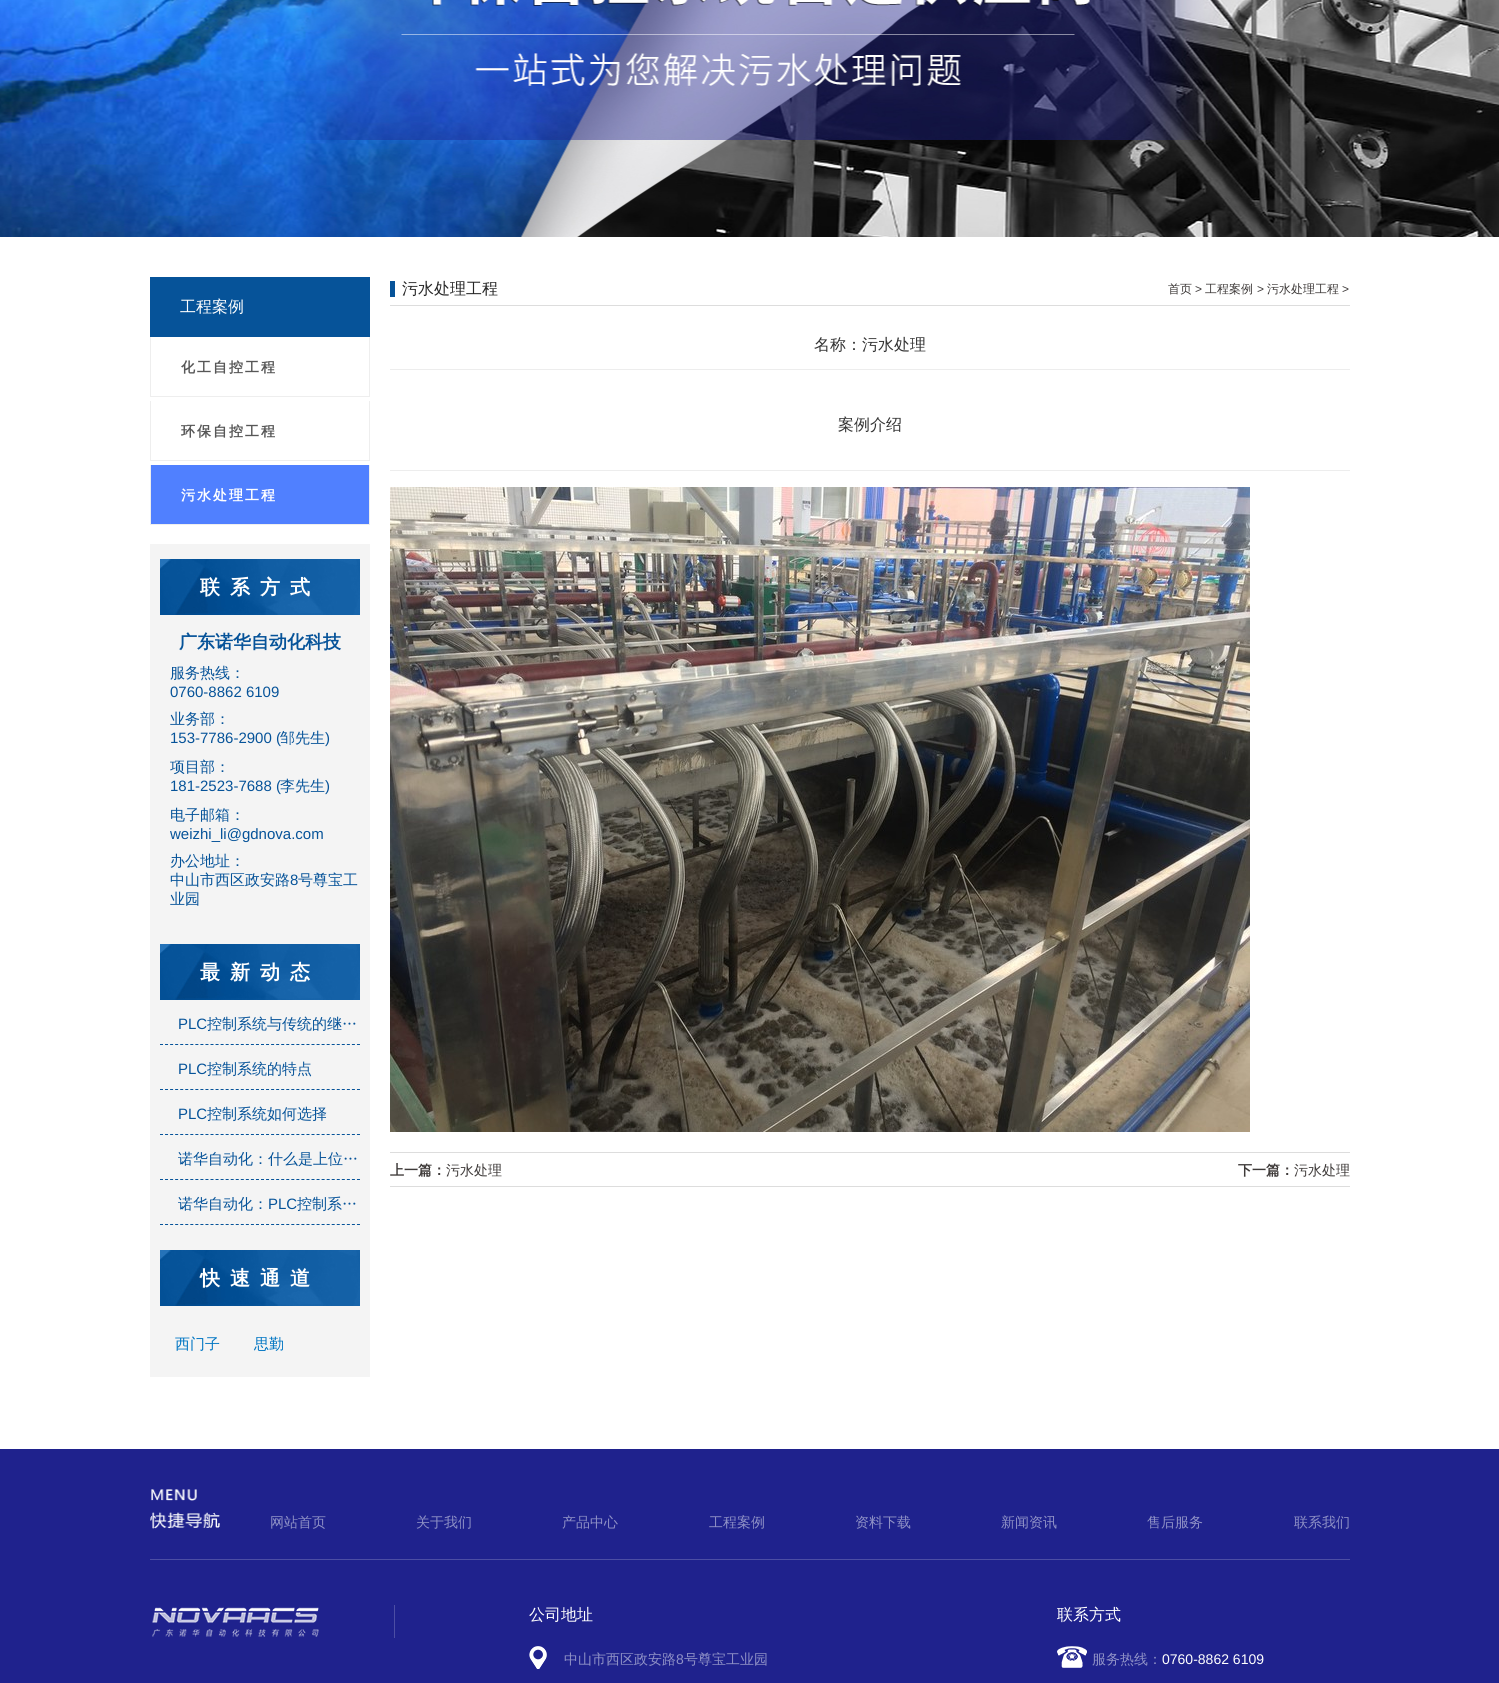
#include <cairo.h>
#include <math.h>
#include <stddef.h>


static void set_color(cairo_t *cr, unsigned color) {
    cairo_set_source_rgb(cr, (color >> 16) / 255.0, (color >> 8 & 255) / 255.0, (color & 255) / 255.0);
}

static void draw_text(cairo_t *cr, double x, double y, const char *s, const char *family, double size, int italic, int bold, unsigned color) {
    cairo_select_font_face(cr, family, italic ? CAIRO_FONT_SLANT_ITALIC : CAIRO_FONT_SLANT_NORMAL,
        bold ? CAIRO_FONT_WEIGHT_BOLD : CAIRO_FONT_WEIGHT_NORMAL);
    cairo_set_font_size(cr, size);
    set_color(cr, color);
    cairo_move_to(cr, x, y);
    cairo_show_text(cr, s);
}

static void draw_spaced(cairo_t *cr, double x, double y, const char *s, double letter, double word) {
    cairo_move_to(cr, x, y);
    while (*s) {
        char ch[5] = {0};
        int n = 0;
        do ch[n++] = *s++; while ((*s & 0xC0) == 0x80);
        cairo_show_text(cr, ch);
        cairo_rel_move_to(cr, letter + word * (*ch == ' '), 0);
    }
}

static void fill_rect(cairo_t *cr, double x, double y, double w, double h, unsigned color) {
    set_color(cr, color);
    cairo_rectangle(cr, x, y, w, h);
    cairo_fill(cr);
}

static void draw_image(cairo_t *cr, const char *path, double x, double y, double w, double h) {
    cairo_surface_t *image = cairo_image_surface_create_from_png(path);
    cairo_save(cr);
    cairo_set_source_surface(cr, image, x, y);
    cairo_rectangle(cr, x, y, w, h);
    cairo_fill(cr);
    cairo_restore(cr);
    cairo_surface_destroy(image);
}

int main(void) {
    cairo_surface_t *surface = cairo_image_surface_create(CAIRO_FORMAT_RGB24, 1499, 1683);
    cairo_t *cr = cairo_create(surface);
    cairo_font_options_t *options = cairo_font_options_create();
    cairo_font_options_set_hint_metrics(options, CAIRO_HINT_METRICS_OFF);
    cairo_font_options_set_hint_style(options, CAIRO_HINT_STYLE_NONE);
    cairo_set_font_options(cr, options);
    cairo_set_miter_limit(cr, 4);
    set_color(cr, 0xFFFFFF);
    cairo_paint(cr);
    draw_image(cr, "assets/img1.png", 0, 0, 1499, 237);
    fill_rect(cr, 150, 277, 220, 60, 0x065399);
    draw_text(cr, 180, 312, "工程案例", "WenQuanYi Zen Hei Medium", 16, 0, 0, 0xFFFFFF);
    fill_rect(cr, 369, 337, 1, 60, 0xEEEEEE);
    fill_rect(cr, 150, 396, 220, 1, 0xEEEEEE);
    fill_rect(cr, 150, 337, 1, 60, 0xEEEEEE);
    cairo_select_font_face(cr, "WenQuanYi Zen Hei", CAIRO_FONT_SLANT_NORMAL, CAIRO_FONT_WEIGHT_BOLD);
    cairo_set_font_size(cr, 14);
    set_color(cr, 0x575757);
    draw_spaced(cr, 181, 372, "化工自控工程", 2, 0);
    fill_rect(cr, 369, 401, 1, 60, 0xEEEEEE);
    fill_rect(cr, 150, 460, 220, 1, 0xEEEEEE);
    fill_rect(cr, 150, 401, 1, 60, 0xEEEEEE);
    set_color(cr, 0x575757);
    draw_spaced(cr, 181, 436, "环保自控工程", 2, 0);
    fill_rect(cr, 151, 465, 218, 59, 0x5080FF);
    fill_rect(cr, 369, 465, 1, 60, 0xEEEEEE);
    fill_rect(cr, 150, 524, 220, 1, 0xEEEEEE);
    fill_rect(cr, 150, 465, 1, 60, 0xEEEEEE);
    set_color(cr, 0xFFFFFF);
    draw_spaced(cr, 181, 500, "污水处理工程", 2, 0);
    fill_rect(cr, 150, 544, 220, 833, 0xF4F4F4);
    draw_image(cr, "assets/img2.png", 160, 559, 200, 56);
    cairo_set_font_size(cr, 20);
    set_color(cr, 0xFFFFFF);
    draw_spaced(cr, 200, 594, "联系方式", 10, 0);
    draw_text(cr, 179, 648, "广东诺华自动化科技", "WenQuanYi Zen Hei", 18, 0, 1, 0x065399);
    draw_text(cr, 170, 678, "服务热线：", "WenQuanYi Zen Hei Medium", 15, 0, 0, 0x065399);
    draw_text(cr, 170, 697, "0760-8862 6109", "Liberation Sans", 15, 0, 0, 0x065399);
    draw_text(cr, 170, 724, "业务部：", "WenQuanYi Zen Hei Medium", 15, 0, 0, 0x065399);
    draw_text(cr, 170, 743, "153-7786-2900 (", "Liberation Sans", 15, 0, 0, 0x065399);
    draw_text(cr, 280, 743, "邹先生", "WenQuanYi Zen Hei Medium", 15, 0, 0, 0x065399);
    draw_text(cr, 325, 743, ")", "Liberation Sans", 15, 0, 0, 0x065399);
    draw_text(cr, 170, 772, "项目部：", "WenQuanYi Zen Hei Medium", 15, 0, 0, 0x065399);
    draw_text(cr, 170, 791, "181-2523-7688 (", "Liberation Sans", 15, 0, 0, 0x065399);
    draw_text(cr, 280, 791, "李先生", "WenQuanYi Zen Hei Medium", 15, 0, 0, 0x065399);
    draw_text(cr, 325, 791, ")", "Liberation Sans", 15, 0, 0, 0x065399);
    draw_text(cr, 170, 820, "电子邮箱：", "WenQuanYi Zen Hei Medium", 15, 0, 0, 0x065399);
    draw_text(cr, 170, 839, "weizhi_li@gdnova.com", "Liberation Sans", 15, 0, 0, 0x065399);
    draw_text(cr, 170, 866, "办公地址：", "WenQuanYi Zen Hei Medium", 15, 0, 0, 0x065399);
    draw_text(cr, 170, 885, "中山市西区政安路", "WenQuanYi Zen Hei Medium", 15, 0, 0, 0x065399);
    draw_text(cr, 290, 885, "8", "Liberation Sans", 15, 0, 0, 0x065399);
    draw_text(cr, 298, 885, "号尊宝工", "WenQuanYi Zen Hei Medium", 15, 0, 0, 0x065399);
    draw_text(cr, 170, 904, "业园", "WenQuanYi Zen Hei Medium", 15, 0, 0, 0x065399);
    draw_image(cr, "assets/img2.png", 160, 944, 200, 56);
    cairo_select_font_face(cr, "WenQuanYi Zen Hei", CAIRO_FONT_SLANT_NORMAL, CAIRO_FONT_WEIGHT_BOLD);
    cairo_set_font_size(cr, 20);
    set_color(cr, 0xFFFFFF);
    draw_spaced(cr, 200, 979, "最新动态", 10, 0);
    cairo_new_path(cr);
    cairo_move_to(cr, 160, 1044.5);
    cairo_line_to(cr, 360, 1044.5);
    set_color(cr, 0x065399);
    cairo_set_line_width(cr, 1);
    cairo_set_dash(cr, (double[]){3, 2.05}, 2, 0);
    cairo_stroke(cr);
    draw_text(cr, 178, 1029, "PLC", "Liberation Sans", 15, 0, 0, 0x065399);
    draw_text(cr, 207, 1029, "控制系统与传统的继…", "WenQuanYi Zen Hei Medium", 15, 0, 0, 0x065399);
    cairo_new_path(cr);
    cairo_move_to(cr, 160, 1089.5);
    cairo_line_to(cr, 360, 1089.5);
    cairo_stroke(cr);
    draw_text(cr, 178, 1074, "PLC", "Liberation Sans", 15, 0, 0, 0x065399);
    draw_text(cr, 207, 1074, "控制系统的特点", "WenQuanYi Zen Hei Medium", 15, 0, 0, 0x065399);
    cairo_new_path(cr);
    cairo_move_to(cr, 160, 1134.5);
    cairo_line_to(cr, 360, 1134.5);
    cairo_stroke(cr);
    draw_text(cr, 178, 1119, "PLC", "Liberation Sans", 15, 0, 0, 0x065399);
    draw_text(cr, 207, 1119, "控制系统如何选择", "WenQuanYi Zen Hei Medium", 15, 0, 0, 0x065399);
    cairo_new_path(cr);
    cairo_move_to(cr, 160, 1179.5);
    cairo_line_to(cr, 360, 1179.5);
    cairo_stroke(cr);
    draw_text(cr, 178, 1164, "诺华自动化：什么是上位…", "WenQuanYi Zen Hei Medium", 15, 0, 0, 0x065399);
    cairo_new_path(cr);
    cairo_move_to(cr, 160, 1224.5);
    cairo_line_to(cr, 360, 1224.5);
    cairo_stroke(cr);
    draw_text(cr, 178, 1209, "诺华自动化：", "WenQuanYi Zen Hei Medium", 15, 0, 0, 0x065399);
    draw_text(cr, 268, 1209, "PLC", "Liberation Sans", 15, 0, 0, 0x065399);
    draw_text(cr, 297, 1209, "控制系…", "WenQuanYi Zen Hei Medium", 15, 0, 0, 0x065399);
    draw_image(cr, "assets/img2.png", 160, 1250, 200, 56);
    cairo_select_font_face(cr, "WenQuanYi Zen Hei", CAIRO_FONT_SLANT_NORMAL, CAIRO_FONT_WEIGHT_BOLD);
    cairo_set_font_size(cr, 20);
    set_color(cr, 0xFFFFFF);
    draw_spaced(cr, 200, 1285, "快速通道", 10, 0);
    draw_text(cr, 175, 1349, "西门子", "WenQuanYi Zen Hei Medium", 15, 0, 0, 0x0075C3);
    draw_text(cr, 254, 1349, "思勤", "WenQuanYi Zen Hei Medium", 15, 0, 0, 0x0075C3);
    fill_rect(cr, 390, 305, 960, 1, 0xDDDDDD);
    fill_rect(cr, 390, 281, 5, 16, 0x065399);
    draw_text(cr, 402, 294, "污水处理工程", "WenQuanYi Zen Hei Medium", 16, 0, 0, 0x262626);
    draw_text(cr, 1168, 293, "首页", "WenQuanYi Zen Hei Medium", 12, 0, 0, 0x3E3A39);
    draw_text(cr, 1195, 293, ">", "Liberation Sans", 12, 0, 0, 0x3E3A39);
    draw_text(cr, 1205, 293, "工程案例", "WenQuanYi Zen Hei Medium", 12, 0, 0, 0x3E3A39);
    draw_text(cr, 1257, 293, ">", "Liberation Sans", 12, 0, 0, 0x3E3A39);
    draw_text(cr, 1267, 293, "污水处理工程", "WenQuanYi Zen Hei Medium", 12, 0, 0, 0x3E3A39);
    draw_text(cr, 1342, 293, ">", "Liberation Sans", 12, 0, 0, 0x3E3A39);
    fill_rect(cr, 390, 369, 960, 1, 0xEDEDED);
    draw_text(cr, 814, 350, "名称：污水处理", "WenQuanYi Zen Hei Medium", 16, 0, 0, 0x333333);
    fill_rect(cr, 390, 470, 960, 1, 0xEDEDED);
    draw_text(cr, 838, 430, "案例介绍", "WenQuanYi Zen Hei Medium", 16, 0, 0, 0x333333);
    draw_image(cr, "assets/img3.png", 390, 487, 860, 645);
    fill_rect(cr, 390, 1152, 960, 1, 0xDDDDDD);
    fill_rect(cr, 390, 1186, 960, 1, 0xDDDDDD);
    draw_text(cr, 390, 1175, "上一篇：", "WenQuanYi Zen Hei", 14, 0, 1, 0x3E3A39);
    draw_text(cr, 446, 1175, "污水处理", "WenQuanYi Zen Hei Medium", 14, 0, 0, 0x3E3A39);
    draw_text(cr, 1238, 1175, "下一篇：", "WenQuanYi Zen Hei", 14, 0, 1, 0x3E3A39);
    draw_text(cr, 1294, 1175, "污水处理", "WenQuanYi Zen Hei Medium", 14, 0, 0, 0x3E3A39);
    fill_rect(cr, 0, 1449, 1499, 234, 0x1F228D);
    draw_image(cr, "assets/img4.png", 150, 1489, 70, 40);
    draw_text(cr, 270, 1527, "网站首页", "WenQuanYi Zen Hei Medium", 14, 0, 0, 0x8F91C6);
    draw_text(cr, 416, 1527, "关于我们", "WenQuanYi Zen Hei Medium", 14, 0, 0, 0x8F91C6);
    draw_text(cr, 562, 1527, "产品中心", "WenQuanYi Zen Hei Medium", 14, 0, 0, 0x8F91C6);
    draw_text(cr, 709, 1527, "工程案例", "WenQuanYi Zen Hei Medium", 14, 0, 0, 0x8F91C6);
    draw_text(cr, 855, 1527, "资料下载", "WenQuanYi Zen Hei Medium", 14, 0, 0, 0x8F91C6);
    draw_text(cr, 1001, 1527, "新闻资讯", "WenQuanYi Zen Hei Medium", 14, 0, 0, 0x8F91C6);
    draw_text(cr, 1147, 1527, "售后服务", "WenQuanYi Zen Hei Medium", 14, 0, 0, 0x8F91C6);
    draw_text(cr, 1294, 1527, "联系我们", "WenQuanYi Zen Hei Medium", 14, 0, 0, 0x8F91C6);
    fill_rect(cr, 150, 1559, 1200, 1, 0x4C4EA4);
    fill_rect(cr, 394, 1605, 1, 33, 0x4C4EA4);
    draw_image(cr, "assets/img5.png", 152, 1607, 167, 30);
    draw_text(cr, 529, 1620, "公司地址", "WenQuanYi Zen Hei Medium", 16, 0, 0, 0xFFFFFF);
    draw_image(cr, "assets/img6.png", 529, 1646, 18, 23);
    draw_text(cr, 564, 1664, "中山市西区政安路", "WenQuanYi Zen Hei Medium", 14, 0, 0, 0x8F91C6);
    draw_text(cr, 676, 1664, "8", "Liberation Sans", 14, 0, 0, 0x8F91C6);
    draw_text(cr, 684, 1664, "号尊宝工业园", "WenQuanYi Zen Hei Medium", 14, 0, 0, 0x8F91C6);
    draw_text(cr, 1057, 1620, "联系方式", "WenQuanYi Zen Hei Medium", 16, 0, 0, 0xFFFFFF);
    draw_image(cr, "assets/img7.png", 1057, 1646, 30, 22);
    draw_text(cr, 1092, 1664, "服务热线：", "WenQuanYi Zen Hei Medium", 14, 0, 0, 0x8F91C6);
    draw_text(cr, 1162, 1664, "0760-8862 6109", "Liberation Sans", 14, 0, 0, 0xFFFFFF);
    cairo_surface_write_to_png(surface, "output.png");
    cairo_font_options_destroy(options);
    cairo_destroy(cr);
    cairo_surface_destroy(surface);
    return 0;
}
